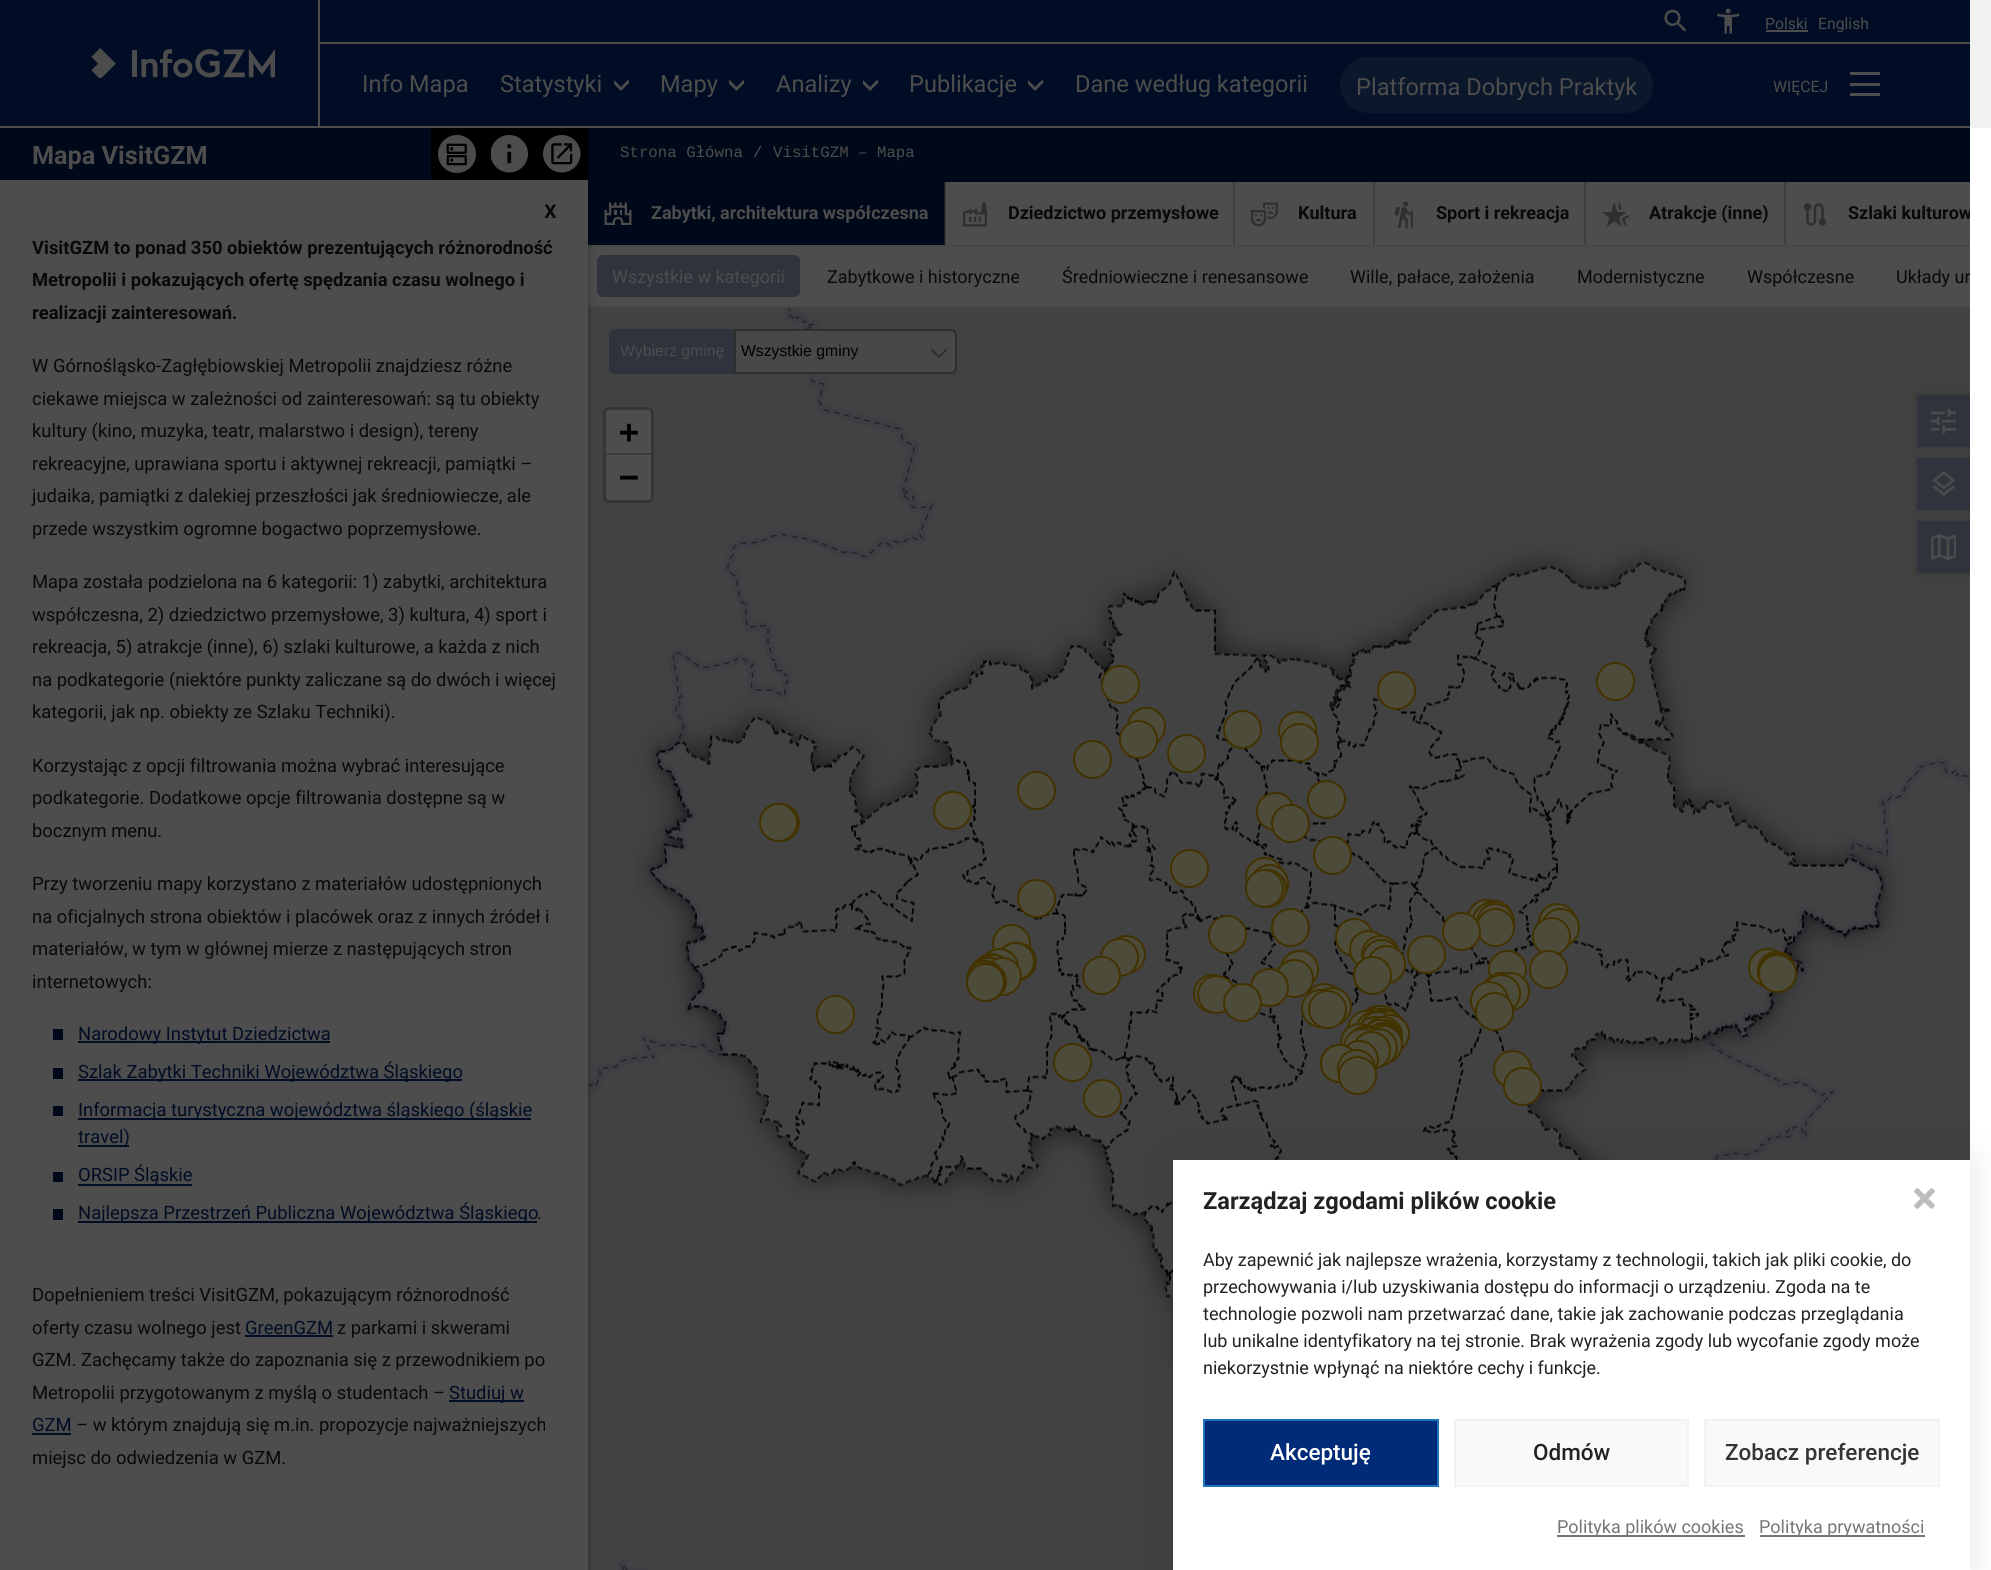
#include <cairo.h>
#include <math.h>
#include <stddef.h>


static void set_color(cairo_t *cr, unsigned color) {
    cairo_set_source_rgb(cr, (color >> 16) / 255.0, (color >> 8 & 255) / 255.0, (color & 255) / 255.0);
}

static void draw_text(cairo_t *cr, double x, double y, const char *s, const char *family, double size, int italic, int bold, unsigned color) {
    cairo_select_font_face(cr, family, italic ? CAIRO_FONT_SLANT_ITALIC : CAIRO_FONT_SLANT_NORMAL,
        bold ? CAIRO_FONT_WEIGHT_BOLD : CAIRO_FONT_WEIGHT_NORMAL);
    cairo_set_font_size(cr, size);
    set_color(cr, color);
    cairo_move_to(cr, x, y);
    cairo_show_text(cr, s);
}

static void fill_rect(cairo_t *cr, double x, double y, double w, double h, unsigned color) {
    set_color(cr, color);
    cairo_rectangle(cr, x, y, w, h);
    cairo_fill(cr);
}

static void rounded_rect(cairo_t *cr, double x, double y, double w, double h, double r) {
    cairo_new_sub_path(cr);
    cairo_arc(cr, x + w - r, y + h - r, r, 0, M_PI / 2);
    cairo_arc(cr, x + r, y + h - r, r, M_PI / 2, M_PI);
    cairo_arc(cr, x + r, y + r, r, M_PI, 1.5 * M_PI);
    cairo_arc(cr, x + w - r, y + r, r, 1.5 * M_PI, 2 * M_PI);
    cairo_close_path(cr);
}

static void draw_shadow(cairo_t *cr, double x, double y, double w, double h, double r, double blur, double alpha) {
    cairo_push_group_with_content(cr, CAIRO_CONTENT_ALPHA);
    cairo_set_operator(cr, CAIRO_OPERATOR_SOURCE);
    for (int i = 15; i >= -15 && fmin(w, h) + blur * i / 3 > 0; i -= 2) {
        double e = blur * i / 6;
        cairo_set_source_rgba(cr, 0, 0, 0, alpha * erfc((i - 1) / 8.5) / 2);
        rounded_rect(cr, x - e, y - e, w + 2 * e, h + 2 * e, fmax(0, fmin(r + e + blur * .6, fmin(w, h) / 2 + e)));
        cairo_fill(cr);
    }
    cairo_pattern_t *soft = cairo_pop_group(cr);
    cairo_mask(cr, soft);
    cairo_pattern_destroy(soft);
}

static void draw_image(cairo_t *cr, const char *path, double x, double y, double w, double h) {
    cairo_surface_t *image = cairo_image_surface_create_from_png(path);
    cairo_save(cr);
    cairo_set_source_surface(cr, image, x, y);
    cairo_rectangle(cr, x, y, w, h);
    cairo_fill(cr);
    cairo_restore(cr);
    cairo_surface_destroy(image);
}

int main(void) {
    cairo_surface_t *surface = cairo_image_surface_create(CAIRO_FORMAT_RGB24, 1991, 1570);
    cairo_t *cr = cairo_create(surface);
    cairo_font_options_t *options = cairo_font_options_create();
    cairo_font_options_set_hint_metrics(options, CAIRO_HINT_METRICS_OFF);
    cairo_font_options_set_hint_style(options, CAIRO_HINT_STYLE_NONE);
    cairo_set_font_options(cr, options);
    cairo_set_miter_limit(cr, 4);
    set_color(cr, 0xF1F1F1);
    cairo_paint(cr);
    fill_rect(cr, 588, 128, 1382, 54, 0x000919);
    fill_rect(cr, 588, 182, 356, 63, 0x000919);
    fill_rect(cr, 588, 247, 1382, 59, 0x4D4D4D);
    fill_rect(cr, 588, 245, 1382, 2, 0x474747);
    fill_rect(cr, 588, 306, 1382, 2, 0x474747);
    set_color(cr, 0x2E333C);
    rounded_rect(cr, 597, 255, 203, 42, 6);
    cairo_fill(cr);
    fill_rect(cr, 588, 308, 1382, 1262, 0x424242);
    draw_image(cr, "assets/img13.png", 588, 308, 1382, 1262);
    set_color(cr, 0x000000);
    draw_shadow(cr, 0, 129, 588, 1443, 0, 3.5, 0.4);
    fill_rect(cr, 0, 0, 1970, 126, 0x000D24);
    fill_rect(cr, 0, 126, 1970, 2, 0x4D4D4D);
    fill_rect(cr, 318, 0, 2, 126, 0x4D4D4D);
    draw_image(cr, "assets/img1.png", 91, 48, 184, 30);
    draw_image(cr, "assets/img2.png", 1664, 9, 23, 23);
    draw_image(cr, "assets/img3.png", 1717, 8, 23, 26);
    draw_text(cr, 1765, 29, "Polski", "Roboto", 15.75, 0, 0, 0x4D4D4D);
    fill_rect(cr, 1766, 30, 42, 2, 0x4D4D4D);
    draw_text(cr, 1818, 29, "English", "Roboto", 15.75, 0, 0, 0x4D4D4D);
    fill_rect(cr, 320, 42, 1650, 2, 0x4D4D4D);
    draw_text(cr, 362, 92, "Info Mapa", "Roboto", 23.6, 0, 0, 0x4D4D4D);
    draw_text(cr, 500, 92, "Statystyki", "Roboto", 23.6, 0, 0, 0x4D4D4D);
    cairo_save(cr);
    cairo_rectangle(cr, 614, 78, 15, 15);
    cairo_clip(cr);
    cairo_new_path(cr);
    cairo_move_to(cr, 614, 80);
    cairo_line_to(cr, 621, 87);
    cairo_line_to(cr, 628, 80);
    cairo_line_to(cr, 630, 82);
    cairo_line_to(cr, 621, 91);
    cairo_line_to(cr, 612, 82);
    cairo_close_path(cr);
    cairo_fill(cr);
    cairo_restore(cr);
    draw_text(cr, 660, 92, "Mapy", "Roboto", 23.6, 0, 0, 0x4D4D4D);
    cairo_save(cr);
    cairo_rectangle(cr, 729, 78, 15, 15);
    cairo_clip(cr);
    cairo_new_path(cr);
    cairo_move_to(cr, 729.5, 80);
    cairo_line_to(cr, 736.5, 87);
    cairo_line_to(cr, 743.5, 80);
    cairo_line_to(cr, 745.5, 82);
    cairo_line_to(cr, 736.5, 91);
    cairo_line_to(cr, 727.5, 82);
    cairo_close_path(cr);
    cairo_fill(cr);
    cairo_restore(cr);
    draw_text(cr, 776, 92, "Analizy", "Roboto", 23.6, 0, 0, 0x4D4D4D);
    cairo_save(cr);
    cairo_rectangle(cr, 863, 78, 15, 15);
    cairo_clip(cr);
    cairo_new_path(cr);
    cairo_move_to(cr, 863, 80);
    cairo_line_to(cr, 870, 87);
    cairo_line_to(cr, 877, 80);
    cairo_line_to(cr, 879, 82);
    cairo_line_to(cr, 870, 91);
    cairo_line_to(cr, 861, 82);
    cairo_close_path(cr);
    cairo_fill(cr);
    cairo_restore(cr);
    draw_text(cr, 909, 92, "Publikacje", "Roboto", 23.6, 0, 0, 0x4D4D4D);
    cairo_save(cr);
    cairo_rectangle(cr, 1028, 78, 16, 15);
    cairo_clip(cr);
    cairo_new_path(cr);
    cairo_move_to(cr, 1028, 80);
    cairo_line_to(cr, 1035, 87);
    cairo_line_to(cr, 1042, 80);
    cairo_line_to(cr, 1044, 82);
    cairo_line_to(cr, 1035, 91);
    cairo_line_to(cr, 1026, 82);
    cairo_close_path(cr);
    cairo_fill(cr);
    cairo_restore(cr);
    draw_text(cr, 1075, 92, "Dane według kategorii", "Roboto", 23.6, 0, 0, 0x4D4D4D);
    set_color(cr, 0x0B172A);
    rounded_rect(cr, 1340, 57, 313, 56, 28);
    cairo_fill(cr);
    draw_text(cr, 1356, 95, "Platforma Dobrych Praktyk", "Roboto", 23.6, 0, 0, 0x4D4D4D);
    draw_text(cr, 1773, 92, "WIĘCEJ", "Roboto", 15.75, 0, 0, 0x4D4D4D);
    fill_rect(cr, 1850, 83, 30, 3, 0x4D4D4D);
    fill_rect(cr, 1850, 72, 30, 3, 0x4D4D4D);
    fill_rect(cr, 1850, 93, 30, 3, 0x4D4D4D);
    fill_rect(cr, 0, 180, 588, 1390, 0x4D4D4D);
    fill_rect(cr, 0, 128, 431, 52, 0x000919);
    fill_rect(cr, 431, 128, 157, 52, 0x000000);
    draw_image(cr, "assets/img4.png", 438, 135, 38, 38);
    draw_text(cr, 32, 164, "Mapa VisitGZM", "Roboto", 25.25, 0, 1, 0x4D4D4D);
    draw_image(cr, "assets/img5.png", 491, 135, 37, 38);
    draw_image(cr, "assets/img6.png", 543, 135, 38, 38);
    draw_text(cr, 544, 218, "x", "Roboto Medium", 25.25, 0, 0, 0x090908);
    draw_text(cr, 32, 254, "VisitGZM to ponad 350 obiektów prezentujących różnorodność", "Roboto", 18.4, 0, 1, 0x090908);
    draw_text(cr, 32, 286, "Metropolii i pokazujących ofertę spędzania czasu wolnego i", "Roboto", 18.4, 0, 1, 0x090908);
    draw_text(cr, 32, 319, "realizacji zainteresowań.", "Roboto", 18.4, 0, 1, 0x090908);
    draw_text(cr, 32, 372, "W Górnośląsko-Zagłębiowskiej Metropolii znajdziesz różne", "Roboto", 18.4, 0, 0, 0x090908);
    draw_text(cr, 32, 405, "ciekawe miejsca w zależności od zainteresowań: są tu obiekty", "Roboto", 18.4, 0, 0, 0x090908);
    draw_text(cr, 32, 437, "kultury (kino, muzyka, teatr, malarstwo i design), tereny", "Roboto", 18.4, 0, 0, 0x090908);
    draw_text(cr, 32, 470, "rekreacyjne, uprawiana sportu i aktywnej rekreacji, pamiątki –", "Roboto", 18.4, 0, 0, 0x090908);
    draw_text(cr, 32, 502, "judaika, pamiątki z dalekiej przeszłości jak średniowiecze, ale", "Roboto", 18.4, 0, 0, 0x090908);
    draw_text(cr, 32, 535, "przede wszystkim ogromne bogactwo poprzemysłowe.", "Roboto", 18.4, 0, 0, 0x090908);
    draw_text(cr, 32, 588, "Mapa została podzielona na 6 kategorii: 1) zabytki, architektura", "Roboto", 18.4, 0, 0, 0x090908);
    draw_text(cr, 32, 621, "współczesna, 2) dziedzictwo przemysłowe, 3) kultura, 4) sport i", "Roboto", 18.4, 0, 0, 0x090908);
    draw_text(cr, 32, 653, "rekreacja, 5) atrakcje (inne), 6) szlaki kulturowe, a każda z nich", "Roboto", 18.4, 0, 0, 0x090908);
    draw_text(cr, 32, 686, "na podkategorie (niektóre punkty zaliczane są do dwóch i więcej", "Roboto", 18.4, 0, 0, 0x090908);
    draw_text(cr, 32, 718, "kategorii, jak np. obiekty ze Szlaku Techniki).", "Roboto", 18.4, 0, 0, 0x090908);
    draw_text(cr, 32, 772, "Korzystając z opcji filtrowania można wybrać interesujące", "Roboto", 18.4, 0, 0, 0x090908);
    draw_text(cr, 32, 804, "podkategorie. Dodatkowe opcje filtrowania dostępne są w", "Roboto", 18.4, 0, 0, 0x090908);
    draw_text(cr, 32, 837, "bocznym menu.", "Roboto", 18.4, 0, 0, 0x090908);
    draw_text(cr, 32, 890, "Przy tworzeniu mapy korzystano z materiałów udostępnionych", "Roboto", 18.4, 0, 0, 0x090908);
    draw_text(cr, 32, 923, "na oficjalnych strona obiektów i placówek oraz z innych źródeł i", "Roboto", 18.4, 0, 0, 0x090908);
    draw_text(cr, 32, 955, "materiałów, w tym w głównej mierze z następujących stron", "Roboto", 18.4, 0, 0, 0x090908);
    draw_text(cr, 32, 988, "internetowych:", "Roboto", 18.4, 0, 0, 0x090908);
    fill_rect(cr, 53, 1029, 10, 11, 0x000919);
    fill_rect(cr, 78, 1041, 252, 2, 0x000D24);
    draw_text(cr, 78, 1040, "Narodowy Instytut Dziedzictwa", "Roboto", 18.4, 0, 0, 0x000D24);
    fill_rect(cr, 53, 1068, 10, 11, 0x000919);
    fill_rect(cr, 78, 1079, 384, 2, 0x000D24);
    draw_text(cr, 78, 1078, "Szlak Zabytki Techniki Województwa Śląskiego", "Roboto", 18.4, 0, 0, 0x000D24);
    fill_rect(cr, 53, 1106, 10, 10, 0x000919);
    fill_rect(cr, 78, 1118, 453, 2, 0x000D24);
    draw_text(cr, 78, 1116, "Informacja turystyczna województwa śląskiego (śląskie", "Roboto", 18.4, 0, 0, 0x000D24);
    fill_rect(cr, 78, 1145, 51, 2, 0x000D24);
    draw_text(cr, 78, 1143, "travel)", "Roboto", 18.4, 0, 0, 0x000D24);
    fill_rect(cr, 53, 1172, 10, 10, 0x000919);
    fill_rect(cr, 78, 1184, 114, 2, 0x000D24);
    draw_text(cr, 78, 1181, "ORSIP Śląskie", "Roboto", 18.4, 0, 0, 0x000D24);
    fill_rect(cr, 53, 1209, 10, 11, 0x000919);
    fill_rect(cr, 78, 1221, 459, 2, 0x000D24);
    draw_text(cr, 78, 1219, "Najlepsza Przestrzeń Publiczna Województwa Śląskiego", "Roboto", 18.4, 0, 0, 0x000D24);
    draw_text(cr, 537, 1219, ".", "Roboto", 18.4, 0, 0, 0x090908);
    draw_text(cr, 32, 1301, "Dopełnieniem treści VisitGZM, pokazującym różnorodność", "Roboto", 18.4, 0, 0, 0x090908);
    draw_text(cr, 32, 1334, "oferty czasu wolnego jest", "Roboto", 18.4, 0, 0, 0x090908);
    draw_text(cr, 245, 1334, "GreenGZM", "Roboto", 18.4, 0, 0, 0x000D24);
    fill_rect(cr, 245, 1335, 88, 2, 0x000D24);
    draw_text(cr, 337, 1334, "z parkami i skwerami", "Roboto", 18.4, 0, 0, 0x090908);
    draw_text(cr, 32, 1366, "GZM. Zachęcamy także do zapoznania się z przewodnikiem po", "Roboto", 18.4, 0, 0, 0x090908);
    draw_text(cr, 32, 1399, "Metropolii przygotowanym z myślą o studentach –", "Roboto", 18.4, 0, 0, 0x090908);
    fill_rect(cr, 449, 1400, 75, 2, 0x000D24);
    draw_text(cr, 449, 1399, "Studiuj w", "Roboto", 18.4, 0, 0, 0x000D24);
    draw_text(cr, 32, 1431, "GZM", "Roboto", 18.4, 0, 0, 0x000D24);
    fill_rect(cr, 32, 1433, 39, 2, 0x000D24);
    draw_text(cr, 76, 1431, "– w którym znajdują się m.in. propozycje najważniejszych", "Roboto", 18.4, 0, 0, 0x090908);
    draw_text(cr, 32, 1464, "miejsc do odwiedzenia w GZM.", "Roboto", 18.4, 0, 0, 0x090908);
    draw_text(cr, 620, 157, "Strona Główna", "Liberation Mono", 15.75, 0, 0, 0x4D4D4D);
    draw_text(cr, 753, 157, "/", "Liberation Mono", 15.75, 0, 0, 0x4D4D4D);
    draw_text(cr, 773, 157, "VisitGZM – Mapa", "Liberation Mono", 15.75, 0, 0, 0x4D4D4D);
    fill_rect(cr, 946, 182, 1024, 63, 0x4D4D4D);
    fill_rect(cr, 945, 182, 1, 63, 0x413F3E);
    fill_rect(cr, 944, 182, 1, 63, 0x1A1D24);
    draw_image(cr, "assets/img7.png", 604, 202, 28, 23);
    draw_text(cr, 651, 219, "Zabytki, architektura współczesna", "Roboto", 18, 0, 1, 0x4D4D4D);
    fill_rect(cr, 1233, 182, 2, 63, 0x413F3E);
    draw_image(cr, "assets/img8.png", 963, 202, 24, 25);
    draw_text(cr, 1008, 219, "Dziedzictwo przemysłowe", "Roboto", 18, 0, 1, 0x090908);
    fill_rect(cr, 1373, 182, 2, 63, 0x413F3E);
    draw_image(cr, "assets/img9.png", 1251, 202, 27, 25);
    draw_text(cr, 1298, 219, "Kultura", "Roboto", 18, 0, 1, 0x090908);
    fill_rect(cr, 1584, 182, 2, 63, 0x413F3E);
    draw_image(cr, "assets/img10.png", 1394, 201, 19, 28);
    draw_text(cr, 1436, 219, "Sport i rekreacja", "Roboto", 18, 0, 1, 0x090908);
    fill_rect(cr, 1784, 182, 2, 63, 0x413F3E);
    draw_image(cr, "assets/img11.png", 1602, 202, 28, 25);
    draw_text(cr, 1649, 219, "Atrakcje (inne)", "Roboto", 18, 0, 1, 0x090908);
    draw_image(cr, "assets/img12.png", 1803, 203, 24, 23);
    draw_text(cr, 1848, 219, "Szlaki kulturow", "Roboto", 18, 0, 1, 0x090908);
    draw_text(cr, 612, 283, "Wszystkie w kategorii", "Roboto", 18, 0, 0, 0x4D4D4D);
    draw_text(cr, 827, 283, "Zabytkowe i historyczne", "Roboto", 18, 0, 0, 0x090908);
    draw_text(cr, 1062, 283, "Średniowieczne i renesansowe", "Roboto", 18, 0, 0, 0x090908);
    draw_text(cr, 1350, 283, "Wille, pałace, założenia", "Roboto", 18, 0, 0, 0x090908);
    draw_text(cr, 1577, 283, "Modernistyczne", "Roboto", 18, 0, 0, 0x090908);
    draw_text(cr, 1747, 283, "Współczesne", "Roboto", 18, 0, 0, 0x090908);
    draw_text(cr, 1896, 283, "Układy ur", "Roboto", 18, 0, 0, 0x090908);
    draw_image(cr, "assets/img15.png", 650, 561, 1234, 737);
    draw_image(cr, "assets/img14.png", 634, 543, 1271, 829);
    set_color(cr, 0x4D4C3A);
    cairo_arc(cr, 1120.5, 684.5, 18.5, 0, 2 * M_PI);
    cairo_fill_preserve(cr);
    set_color(cr, 0x423200);
    cairo_stroke(cr);
    set_color(cr, 0x4D4C3A);
    cairo_arc(cr, 1396.5, 690.5, 18.5, 0, 2 * M_PI);
    cairo_fill_preserve(cr);
    set_color(cr, 0x423200);
    cairo_stroke(cr);
    set_color(cr, 0x4D4C3A);
    cairo_arc(cr, 1615.5, 681.5, 18.5, 0, 2 * M_PI);
    cairo_fill_preserve(cr);
    set_color(cr, 0x423200);
    cairo_stroke(cr);
    set_color(cr, 0x4D4C3A);
    cairo_arc(cr, 1146.5, 726.5, 18.5, 0, 2 * M_PI);
    cairo_fill_preserve(cr);
    set_color(cr, 0x423200);
    cairo_stroke(cr);
    set_color(cr, 0x4D4C3A);
    cairo_arc(cr, 1242.5, 729.5, 18.5, 0, 2 * M_PI);
    cairo_fill_preserve(cr);
    set_color(cr, 0x423200);
    cairo_stroke(cr);
    set_color(cr, 0x4D4C3A);
    cairo_arc(cr, 1297.5, 730.5, 18.5, 0, 2 * M_PI);
    cairo_fill_preserve(cr);
    set_color(cr, 0x423200);
    cairo_stroke(cr);
    set_color(cr, 0x4D4C3A);
    cairo_arc(cr, 1092.5, 759.5, 18.5, 0, 2 * M_PI);
    cairo_fill_preserve(cr);
    set_color(cr, 0x423200);
    cairo_stroke(cr);
    set_color(cr, 0x4D4C3A);
    cairo_arc(cr, 1138.5, 739.5, 18.5, 0, 2 * M_PI);
    cairo_fill_preserve(cr);
    set_color(cr, 0x423200);
    cairo_stroke(cr);
    set_color(cr, 0x4D4C3A);
    cairo_arc(cr, 1186.5, 753.5, 18.5, 0, 2 * M_PI);
    cairo_fill_preserve(cr);
    set_color(cr, 0x423200);
    cairo_stroke(cr);
    set_color(cr, 0x4D4C3A);
    cairo_arc(cr, 1299.5, 742.5, 18.5, 0, 2 * M_PI);
    cairo_fill_preserve(cr);
    set_color(cr, 0x423200);
    cairo_stroke(cr);
    cairo_arc(cr, 780.5, 822.5, 18.5, 0, 2 * M_PI);
    cairo_stroke(cr);
    set_color(cr, 0x4D4C3A);
    cairo_arc(cr, 778.5, 822.5, 18.5, 0, 2 * M_PI);
    cairo_fill_preserve(cr);
    set_color(cr, 0x423200);
    cairo_stroke(cr);
    set_color(cr, 0x4D4C3A);
    cairo_arc(cr, 952.5, 810.5, 18.5, 0, 2 * M_PI);
    cairo_fill_preserve(cr);
    set_color(cr, 0x423200);
    cairo_stroke(cr);
    set_color(cr, 0x4D4C3A);
    cairo_arc(cr, 1036.5, 790.5, 18.5, 0, 2 * M_PI);
    cairo_fill_preserve(cr);
    set_color(cr, 0x423200);
    cairo_stroke(cr);
    set_color(cr, 0x4D4C3A);
    cairo_arc(cr, 1275.5, 811.5, 18.5, 0, 2 * M_PI);
    cairo_fill_preserve(cr);
    set_color(cr, 0x423200);
    cairo_stroke(cr);
    set_color(cr, 0x4D4C3A);
    cairo_arc(cr, 1326.5, 799.5, 18.5, 0, 2 * M_PI);
    cairo_fill_preserve(cr);
    set_color(cr, 0x423200);
    cairo_stroke(cr);
    set_color(cr, 0x4D4C3A);
    cairo_arc(cr, 1290.5, 823.5, 18.5, 0, 2 * M_PI);
    cairo_fill_preserve(cr);
    set_color(cr, 0x423200);
    cairo_stroke(cr);
    set_color(cr, 0x4D4C3A);
    cairo_arc(cr, 1189.5, 868.5, 18.5, 0, 2 * M_PI);
    cairo_fill_preserve(cr);
    set_color(cr, 0x423200);
    cairo_stroke(cr);
    set_color(cr, 0x4D4C3A);
    cairo_arc(cr, 1264.5, 876.5, 18.5, 0, 2 * M_PI);
    cairo_fill_preserve(cr);
    set_color(cr, 0x423200);
    cairo_stroke(cr);
    set_color(cr, 0x4D4C3A);
    cairo_arc(cr, 1332.5, 855.5, 18.5, 0, 2 * M_PI);
    cairo_fill_preserve(cr);
    set_color(cr, 0x423200);
    cairo_stroke(cr);
    set_color(cr, 0x4D4C3A);
    cairo_arc(cr, 1269.5, 883.5, 18.5, 0, 2 * M_PI);
    cairo_fill_preserve(cr);
    set_color(cr, 0x423200);
    cairo_stroke(cr);
    set_color(cr, 0x4D4C3A);
    cairo_arc(cr, 1267.5, 888.5, 18.5, 0, 2 * M_PI);
    cairo_fill_preserve(cr);
    set_color(cr, 0x423200);
    cairo_stroke(cr);
    set_color(cr, 0x4D4C3A);
    cairo_arc(cr, 1264.5, 888.5, 18.5, 0, 2 * M_PI);
    cairo_fill_preserve(cr);
    set_color(cr, 0x423200);
    cairo_stroke(cr);
    set_color(cr, 0x4D4C3A);
    cairo_arc(cr, 1036.5, 898.5, 18.5, 0, 2 * M_PI);
    cairo_fill_preserve(cr);
    set_color(cr, 0x423200);
    cairo_stroke(cr);
    set_color(cr, 0x4D4C3A);
    cairo_arc(cr, 1486.5, 918.5, 18.5, 0, 2 * M_PI);
    cairo_fill_preserve(cr);
    set_color(cr, 0x423200);
    cairo_stroke(cr);
    set_color(cr, 0x4D4C3A);
    cairo_arc(cr, 1494.5, 919.5, 18.5, 0, 2 * M_PI);
    cairo_fill_preserve(cr);
    set_color(cr, 0x423200);
    cairo_stroke(cr);
    set_color(cr, 0x4D4C3A);
    cairo_arc(cr, 1491.5, 921.5, 18.5, 0, 2 * M_PI);
    cairo_fill_preserve(cr);
    set_color(cr, 0x423200);
    cairo_stroke(cr);
    set_color(cr, 0x4D4C3A);
    cairo_arc(cr, 1290.5, 927.5, 18.5, 0, 2 * M_PI);
    cairo_fill_preserve(cr);
    set_color(cr, 0x423200);
    cairo_stroke(cr);
    set_color(cr, 0x4D4C3A);
    cairo_arc(cr, 1495.5, 922.5, 18.5, 0, 2 * M_PI);
    cairo_fill_preserve(cr);
    set_color(cr, 0x423200);
    cairo_stroke(cr);
    set_color(cr, 0x4D4C3A);
    cairo_arc(cr, 1557.5, 922.5, 18.5, 0, 2 * M_PI);
    cairo_fill_preserve(cr);
    set_color(cr, 0x423200);
    cairo_stroke(cr);
    set_color(cr, 0x4D4C3A);
    cairo_arc(cr, 1227.5, 934.5, 18.5, 0, 2 * M_PI);
    cairo_fill_preserve(cr);
    set_color(cr, 0x423200);
    cairo_stroke(cr);
    set_color(cr, 0x4D4C3A);
    cairo_arc(cr, 1495.5, 927.5, 18.5, 0, 2 * M_PI);
    cairo_fill_preserve(cr);
    set_color(cr, 0x423200);
    cairo_stroke(cr);
    set_color(cr, 0x4D4C3A);
    cairo_arc(cr, 1461.5, 931.5, 18.5, 0, 2 * M_PI);
    cairo_fill_preserve(cr);
    set_color(cr, 0x423200);
    cairo_stroke(cr);
    set_color(cr, 0x4D4C3A);
    cairo_arc(cr, 1560.5, 927.5, 18.5, 0, 2 * M_PI);
    cairo_fill_preserve(cr);
    set_color(cr, 0x423200);
    cairo_stroke(cr);
    set_color(cr, 0x4D4C3A);
    cairo_arc(cr, 1011.5, 943.5, 18.5, 0, 2 * M_PI);
    cairo_fill_preserve(cr);
    set_color(cr, 0x423200);
    cairo_stroke(cr);
    set_color(cr, 0x4D4C3A);
    cairo_arc(cr, 1354.5, 937.5, 18.5, 0, 2 * M_PI);
    cairo_fill_preserve(cr);
    set_color(cr, 0x423200);
    cairo_stroke(cr);
    set_color(cr, 0x4D4C3A);
    cairo_arc(cr, 1551.5, 936.5, 18.5, 0, 2 * M_PI);
    cairo_fill_preserve(cr);
    set_color(cr, 0x423200);
    cairo_stroke(cr);
    set_color(cr, 0x4D4C3A);
    cairo_arc(cr, 1126.5, 954.5, 18.5, 0, 2 * M_PI);
    cairo_fill_preserve(cr);
    set_color(cr, 0x423200);
    cairo_stroke(cr);
    set_color(cr, 0x4D4C3A);
    cairo_arc(cr, 1368.5, 949.5, 18.5, 0, 2 * M_PI);
    cairo_fill_preserve(cr);
    set_color(cr, 0x423200);
    cairo_stroke(cr);
    set_color(cr, 0x4D4C3A);
    cairo_arc(cr, 1119.5, 957.5, 18.5, 0, 2 * M_PI);
    cairo_fill_preserve(cr);
    set_color(cr, 0x423200);
    cairo_stroke(cr);
    set_color(cr, 0x4D4C3A);
    cairo_arc(cr, 1380.5, 954.5, 18.5, 0, 2 * M_PI);
    cairo_fill_preserve(cr);
    set_color(cr, 0x423200);
    cairo_stroke(cr);
    set_color(cr, 0x4D4C3A);
    cairo_arc(cr, 1426.5, 954.5, 18.5, 0, 2 * M_PI);
    cairo_fill_preserve(cr);
    set_color(cr, 0x423200);
    cairo_stroke(cr);
    cairo_arc(cr, 1017.5, 961.5, 18.5, 0, 2 * M_PI);
    cairo_stroke(cr);
    set_color(cr, 0x4D4C3A);
    cairo_arc(cr, 1015.5, 961.5, 18.5, 0, 2 * M_PI);
    cairo_fill_preserve(cr);
    set_color(cr, 0x423200);
    cairo_stroke(cr);
    set_color(cr, 0x4D4C3A);
    cairo_arc(cr, 1381.5, 958.5, 18.5, 0, 2 * M_PI);
    cairo_fill_preserve(cr);
    set_color(cr, 0x423200);
    cairo_stroke(cr);
    set_color(cr, 0x4D4C3A);
    cairo_arc(cr, 1386.5, 964.5, 18.5, 0, 2 * M_PI);
    cairo_fill_preserve(cr);
    set_color(cr, 0x423200);
    cairo_stroke(cr);
    set_color(cr, 0x4D4C3A);
    cairo_arc(cr, 999.5, 967.5, 18.5, 0, 2 * M_PI);
    cairo_fill_preserve(cr);
    set_color(cr, 0x423200);
    cairo_stroke(cr);
    set_color(cr, 0x4D4C3A);
    cairo_arc(cr, 1299.5, 969.5, 18.5, 0, 2 * M_PI);
    cairo_fill_preserve(cr);
    set_color(cr, 0x423200);
    cairo_stroke(cr);
    set_color(cr, 0x4D4C3A);
    cairo_arc(cr, 1507.5, 969.5, 18.5, 0, 2 * M_PI);
    cairo_fill_preserve(cr);
    set_color(cr, 0x423200);
    cairo_stroke(cr);
    set_color(cr, 0x4D4C3A);
    cairo_arc(cr, 1548.5, 969.5, 18.5, 0, 2 * M_PI);
    cairo_fill_preserve(cr);
    set_color(cr, 0x423200);
    cairo_stroke(cr);
    set_color(cr, 0x4D4C3A);
    cairo_arc(cr, 1767.5, 967.5, 18.5, 0, 2 * M_PI);
    cairo_fill_preserve(cr);
    set_color(cr, 0x423200);
    cairo_stroke(cr);
    cairo_arc(cr, 991.5, 972.5, 18.5, 0, 2 * M_PI);
    cairo_stroke(cr);
    cairo_arc(cr, 1776.5, 970.5, 18.5, 0, 2 * M_PI);
    cairo_stroke(cr);
    set_color(cr, 0x4D4C3A);
    cairo_arc(cr, 993.5, 973.5, 18.5, 0, 2 * M_PI);
    cairo_fill_preserve(cr);
    set_color(cr, 0x423200);
    cairo_stroke(cr);
    cairo_arc(cr, 1776.5, 972.5, 18.5, 0, 2 * M_PI);
    cairo_stroke(cr);
    cairo_arc(cr, 987.5, 975.5, 18.5, 0, 2 * M_PI);
    cairo_stroke(cr);
    set_color(cr, 0x4D4C3A);
    cairo_arc(cr, 1101.5, 975.5, 18.5, 0, 2 * M_PI);
    cairo_fill_preserve(cr);
    set_color(cr, 0x423200);
    cairo_stroke(cr);
    set_color(cr, 0x4D4C3A);
    cairo_arc(cr, 1372.5, 975.5, 18.5, 0, 2 * M_PI);
    cairo_fill_preserve(cr);
    set_color(cr, 0x423200);
    cairo_stroke(cr);
    set_color(cr, 0x4D4C3A);
    cairo_arc(cr, 1777.5, 973.5, 18.5, 0, 2 * M_PI);
    cairo_fill_preserve(cr);
    set_color(cr, 0x423200);
    cairo_stroke(cr);
    set_color(cr, 0x4D4C3A);
    cairo_arc(cr, 988.5, 976.5, 18.5, 0, 2 * M_PI);
    cairo_fill_preserve(cr);
    set_color(cr, 0x423200);
    cairo_stroke(cr);
    set_color(cr, 0x4D4C3A);
    cairo_arc(cr, 1002.5, 976.5, 18.5, 0, 2 * M_PI);
    cairo_fill_preserve(cr);
    set_color(cr, 0x423200);
    cairo_stroke(cr);
    set_color(cr, 0x4D4C3A);
    cairo_arc(cr, 1294.5, 978.5, 18.5, 0, 2 * M_PI);
    cairo_fill_preserve(cr);
    set_color(cr, 0x423200);
    cairo_stroke(cr);
    set_color(cr, 0x4D4C3A);
    cairo_arc(cr, 985.5, 979.5, 18.5, 0, 2 * M_PI);
    cairo_fill_preserve(cr);
    set_color(cr, 0x423200);
    cairo_stroke(cr);
    cairo_arc(cr, 987.5, 981.5, 18.5, 0, 2 * M_PI);
    cairo_stroke(cr);
    set_color(cr, 0x4D4C3A);
    cairo_arc(cr, 985.5, 982.5, 18.5, 0, 2 * M_PI);
    cairo_fill_preserve(cr);
    set_color(cr, 0x423200);
    cairo_stroke(cr);
    set_color(cr, 0x4D4C3A);
    cairo_arc(cr, 1269.5, 987.5, 18.5, 0, 2 * M_PI);
    cairo_fill_preserve(cr);
    set_color(cr, 0x423200);
    cairo_stroke(cr);
    cairo_arc(cr, 1501.5, 991.5, 18.5, 0, 2 * M_PI);
    cairo_stroke(cr);
    set_color(cr, 0x4D4C3A);
    cairo_arc(cr, 1212.5, 993.5, 18.5, 0, 2 * M_PI);
    cairo_fill_preserve(cr);
    set_color(cr, 0x423200);
    cairo_stroke(cr);
    set_color(cr, 0x4D4C3A);
    cairo_arc(cr, 1510.5, 991.5, 18.5, 0, 2 * M_PI);
    cairo_fill_preserve(cr);
    set_color(cr, 0x423200);
    cairo_stroke(cr);
    set_color(cr, 0x4D4C3A);
    cairo_arc(cr, 1216.5, 994.5, 18.5, 0, 2 * M_PI);
    cairo_fill_preserve(cr);
    set_color(cr, 0x423200);
    cairo_stroke(cr);
    set_color(cr, 0x4D4C3A);
    cairo_arc(cr, 1501.5, 993.5, 18.5, 0, 2 * M_PI);
    cairo_fill_preserve(cr);
    set_color(cr, 0x423200);
    cairo_stroke(cr);
    set_color(cr, 0x4D4C3A);
    cairo_arc(cr, 1242.5, 1002.5, 18.5, 0, 2 * M_PI);
    cairo_fill_preserve(cr);
    set_color(cr, 0x423200);
    cairo_stroke(cr);
    set_color(cr, 0x4D4C3A);
    cairo_arc(cr, 1324.5, 1002.5, 18.5, 0, 2 * M_PI);
    cairo_fill_preserve(cr);
    set_color(cr, 0x423200);
    cairo_stroke(cr);
    set_color(cr, 0x4D4C3A);
    cairo_arc(cr, 1489.5, 1000.5, 18.5, 0, 2 * M_PI);
    cairo_fill_preserve(cr);
    set_color(cr, 0x423200);
    cairo_stroke(cr);
    set_color(cr, 0x4D4C3A);
    cairo_arc(cr, 1332.5, 1006.5, 18.5, 0, 2 * M_PI);
    cairo_fill_preserve(cr);
    set_color(cr, 0x423200);
    cairo_stroke(cr);
    set_color(cr, 0x4D4C3A);
    cairo_arc(cr, 1320.5, 1008.5, 18.5, 0, 2 * M_PI);
    cairo_fill_preserve(cr);
    set_color(cr, 0x423200);
    cairo_stroke(cr);
    set_color(cr, 0x4D4C3A);
    cairo_arc(cr, 835.5, 1014.5, 18.5, 0, 2 * M_PI);
    cairo_fill_preserve(cr);
    set_color(cr, 0x423200);
    cairo_stroke(cr);
    set_color(cr, 0x4D4C3A);
    cairo_arc(cr, 1327.5, 1009.5, 18.5, 0, 2 * M_PI);
    cairo_fill_preserve(cr);
    set_color(cr, 0x423200);
    cairo_stroke(cr);
    cairo_arc(cr, 1378.5, 1024.5, 18.5, 0, 2 * M_PI);
    cairo_stroke(cr);
    set_color(cr, 0x4D4C3A);
    cairo_arc(cr, 1494.5, 1011.5, 18.5, 0, 2 * M_PI);
    cairo_fill_preserve(cr);
    set_color(cr, 0x423200);
    cairo_stroke(cr);
    set_color(cr, 0x4D4C3A);
    cairo_arc(cr, 1381.5, 1024.5, 18.5, 0, 2 * M_PI);
    cairo_fill_preserve(cr);
    set_color(cr, 0x423200);
    cairo_stroke(cr);
    cairo_arc(cr, 1383.5, 1027.5, 18.5, 0, 2 * M_PI);
    cairo_stroke(cr);
    set_color(cr, 0x4D4C3A);
    cairo_arc(cr, 1378.5, 1027.5, 18.5, 0, 2 * M_PI);
    cairo_fill_preserve(cr);
    set_color(cr, 0x423200);
    cairo_stroke(cr);
    cairo_arc(cr, 1381.5, 1029.5, 18.5, 0, 2 * M_PI);
    cairo_stroke(cr);
    set_color(cr, 0x4D4C3A);
    cairo_arc(cr, 1386.5, 1029.5, 18.5, 0, 2 * M_PI);
    cairo_fill_preserve(cr);
    set_color(cr, 0x423200);
    cairo_stroke(cr);
    set_color(cr, 0x4D4C3A);
    cairo_arc(cr, 1366.5, 1029.5, 18.5, 0, 2 * M_PI);
    cairo_fill_preserve(cr);
    set_color(cr, 0x423200);
    cairo_stroke(cr);
    set_color(cr, 0x4D4C3A);
    cairo_arc(cr, 1374.5, 1030.5, 18.5, 0, 2 * M_PI);
    cairo_fill_preserve(cr);
    set_color(cr, 0x423200);
    cairo_stroke(cr);
    set_color(cr, 0x4D4C3A);
    cairo_arc(cr, 1378.5, 1030.5, 18.5, 0, 2 * M_PI);
    cairo_fill_preserve(cr);
    set_color(cr, 0x423200);
    cairo_stroke(cr);
    set_color(cr, 0x4D4C3A);
    cairo_arc(cr, 1390.5, 1033.5, 18.5, 0, 2 * M_PI);
    cairo_fill_preserve(cr);
    set_color(cr, 0x423200);
    cairo_stroke(cr);
    set_color(cr, 0x4D4C3A);
    cairo_arc(cr, 1375.5, 1035.5, 18.5, 0, 2 * M_PI);
    cairo_fill_preserve(cr);
    set_color(cr, 0x423200);
    cairo_stroke(cr);
    set_color(cr, 0x4D4C3A);
    cairo_arc(cr, 1383.5, 1035.5, 18.5, 0, 2 * M_PI);
    cairo_fill_preserve(cr);
    set_color(cr, 0x423200);
    cairo_stroke(cr);
    cairo_arc(cr, 1383.5, 1038.5, 18.5, 0, 2 * M_PI);
    cairo_stroke(cr);
    set_color(cr, 0x4D4C3A);
    cairo_arc(cr, 1380.5, 1038.5, 18.5, 0, 2 * M_PI);
    cairo_fill_preserve(cr);
    set_color(cr, 0x423200);
    cairo_stroke(cr);
    cairo_arc(cr, 1383.5, 1041.5, 18.5, 0, 2 * M_PI);
    cairo_stroke(cr);
    set_color(cr, 0x4D4C3A);
    cairo_arc(cr, 1381.5, 1042.5, 18.5, 0, 2 * M_PI);
    cairo_fill_preserve(cr);
    set_color(cr, 0x423200);
    cairo_stroke(cr);
    set_color(cr, 0x4D4C3A);
    cairo_arc(cr, 1359.5, 1042.5, 18.5, 0, 2 * M_PI);
    cairo_fill_preserve(cr);
    set_color(cr, 0x423200);
    cairo_stroke(cr);
    cairo_arc(cr, 1383.5, 1044.5, 18.5, 0, 2 * M_PI);
    cairo_stroke(cr);
    set_color(cr, 0x4D4C3A);
    cairo_arc(cr, 1383.5, 1044.5, 18.5, 0, 2 * M_PI);
    cairo_fill_preserve(cr);
    set_color(cr, 0x423200);
    cairo_stroke(cr);
    cairo_arc(cr, 1366.5, 1044.5, 18.5, 0, 2 * M_PI);
    cairo_stroke(cr);
    cairo_arc(cr, 1366.5, 1044.5, 18.5, 0, 2 * M_PI);
    cairo_stroke(cr);
    set_color(cr, 0x4D4C3A);
    cairo_arc(cr, 1366.5, 1045.5, 18.5, 0, 2 * M_PI);
    cairo_fill_preserve(cr);
    set_color(cr, 0x423200);
    cairo_stroke(cr);
    set_color(cr, 0x4D4C3A);
    cairo_arc(cr, 1378.5, 1047.5, 18.5, 0, 2 * M_PI);
    cairo_fill_preserve(cr);
    set_color(cr, 0x423200);
    cairo_stroke(cr);
    set_color(cr, 0x4D4C3A);
    cairo_arc(cr, 1362.5, 1047.5, 18.5, 0, 2 * M_PI);
    cairo_fill_preserve(cr);
    set_color(cr, 0x423200);
    cairo_stroke(cr);
    set_color(cr, 0x4D4C3A);
    cairo_arc(cr, 1371.5, 1050.5, 18.5, 0, 2 * M_PI);
    cairo_fill_preserve(cr);
    set_color(cr, 0x423200);
    cairo_stroke(cr);
    set_color(cr, 0x4D4C3A);
    cairo_arc(cr, 1072.5, 1062.5, 18.5, 0, 2 * M_PI);
    cairo_fill_preserve(cr);
    set_color(cr, 0x423200);
    cairo_stroke(cr);
    set_color(cr, 0x4D4C3A);
    cairo_arc(cr, 1359.5, 1059.5, 18.5, 0, 2 * M_PI);
    cairo_fill_preserve(cr);
    set_color(cr, 0x423200);
    cairo_stroke(cr);
    cairo_arc(cr, 1339.5, 1063.5, 18.5, 0, 2 * M_PI);
    cairo_stroke(cr);
    set_color(cr, 0x4D4C3A);
    cairo_arc(cr, 1339.5, 1063.5, 18.5, 0, 2 * M_PI);
    cairo_fill_preserve(cr);
    set_color(cr, 0x423200);
    cairo_stroke(cr);
    set_color(cr, 0x4D4C3A);
    cairo_arc(cr, 1356.5, 1068.5, 18.5, 0, 2 * M_PI);
    cairo_fill_preserve(cr);
    set_color(cr, 0x423200);
    cairo_stroke(cr);
    set_color(cr, 0x4D4C3A);
    cairo_arc(cr, 1512.5, 1069.5, 18.5, 0, 2 * M_PI);
    cairo_fill_preserve(cr);
    set_color(cr, 0x423200);
    cairo_stroke(cr);
    set_color(cr, 0x4D4C3A);
    cairo_arc(cr, 1102.5, 1098.5, 18.5, 0, 2 * M_PI);
    cairo_fill_preserve(cr);
    set_color(cr, 0x423200);
    cairo_stroke(cr);
    set_color(cr, 0x4D4C3A);
    cairo_arc(cr, 1357.5, 1075.5, 18.5, 0, 2 * M_PI);
    cairo_fill_preserve(cr);
    set_color(cr, 0x423200);
    cairo_stroke(cr);
    set_color(cr, 0x4D4C3A);
    cairo_arc(cr, 1522.5, 1086.5, 18.5, 0, 2 * M_PI);
    cairo_fill_preserve(cr);
    set_color(cr, 0x423200);
    cairo_stroke(cr);
    set_color(cr, 0x2E333C);
    cairo_new_path(cr);
    cairo_move_to(cr, 615, 329);
    cairo_line_to(cr, 734, 329);
    cairo_line_to(cr, 734, 374);
    cairo_line_to(cr, 615, 374);
    cairo_curve_to(cr, 611.5, 374, 609, 371.5, 609, 368);
    cairo_line_to(cr, 609, 335);
    cairo_curve_to(cr, 609, 331.5, 611.5, 329, 615, 329);
    cairo_close_path(cr);
    cairo_fill(cr);
    draw_text(cr, 620, 356, "Wybierz gminę", "Liberation Sans", 15.75, 0, 0, 0x4D4D4D);
    set_color(cr, 0x484848);
    cairo_new_path(cr);
    cairo_move_to(cr, 735, 330);
    cairo_line_to(cr, 951, 330);
    cairo_curve_to(cr, 954, 330, 956, 332, 956, 335);
    cairo_line_to(cr, 956, 368);
    cairo_curve_to(cr, 956, 371, 954, 373, 951, 373);
    cairo_line_to(cr, 735, 373);
    cairo_close_path(cr);
    cairo_fill_preserve(cr);
    set_color(cr, 0x2F2F2F);
    cairo_stroke(cr);
    draw_text(cr, 741, 356, "Wszystkie gminy", "Liberation Sans", 15.75, 0, 0, 0x000000);
    draw_image(cr, "assets/img16.png", 930, 348, 18, 10);
    rounded_rect(cr, 604.5, 408.5, 48, 93, 4.5);
    set_color(cr, 0x353535);
    cairo_set_line_width(cr, 3);
    cairo_stroke(cr);
    set_color(cr, 0x4D4D4D);
    cairo_new_path(cr);
    cairo_move_to(cr, 609, 410);
    cairo_line_to(cr, 648, 410);
    cairo_curve_to(cr, 649.5, 410, 651, 411.5, 651, 413);
    cairo_line_to(cr, 651, 455);
    cairo_line_to(cr, 606, 455);
    cairo_line_to(cr, 606, 413);
    cairo_curve_to(cr, 606, 411.5, 607.5, 410, 609, 410);
    cairo_close_path(cr);
    cairo_fill(cr);
    fill_rect(cr, 606, 453, 45, 2, 0x3D3D3D);
    draw_text(cr, 619, 443, "+", "DejaVu Sans Mono", 33, 0, 1, 0x000000);
    set_color(cr, 0x4D4D4D);
    cairo_new_path(cr);
    cairo_move_to(cr, 606, 455);
    cairo_line_to(cr, 651, 455);
    cairo_line_to(cr, 651, 497);
    cairo_curve_to(cr, 651, 498.5, 649.5, 500, 648, 500);
    cairo_line_to(cr, 609, 500);
    cairo_curve_to(cr, 607.5, 500, 606, 498.5, 606, 497);
    cairo_close_path(cr);
    cairo_fill(cr);
    draw_text(cr, 619, 488, "−", "DejaVu Sans Mono", 33, 0, 1, 0x000000);
    fill_rect(cr, 1970, 128, 21, 1442, 0xFFFFFF);
    cairo_save(cr);
    cairo_rectangle(cr, 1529, 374, 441, 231);
    cairo_clip(cr);
    set_color(cr, 0x000000);
    draw_shadow(cr, 1917, 395, 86, 52, 0, 4, 0.2);
    cairo_restore(cr);
    fill_rect(cr, 1917, 395, 53, 52, 0x2E333C);
    draw_image(cr, "assets/img17.png", 1931, 408, 25, 26);
    cairo_save(cr);
    cairo_rectangle(cr, 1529, 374, 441, 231);
    cairo_clip(cr);
    set_color(cr, 0x000000);
    draw_shadow(cr, 1917, 458, 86, 52, 0, 4, 0.2);
    cairo_restore(cr);
    fill_rect(cr, 1917, 458, 53, 52, 0x2E333C);
    draw_image(cr, "assets/img18.png", 1932, 471, 23, 25);
    cairo_save(cr);
    cairo_rectangle(cr, 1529, 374, 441, 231);
    cairo_clip(cr);
    set_color(cr, 0x000000);
    draw_shadow(cr, 1917, 521, 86, 52, 0, 4, 0.2);
    cairo_restore(cr);
    fill_rect(cr, 1917, 521, 53, 52, 0x2E333C);
    draw_image(cr, "assets/img19.png", 1931, 534, 25, 26);
    set_color(cr, 0x000000);
    draw_shadow(cr, 1173, 1160, 797, 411, 0, 21, 0.1);
    fill_rect(cr, 1173, 1160, 797, 410, 0xFFFFFF);
    draw_text(cr, 1203, 1209, "Zarządzaj zgodami plików cookie", "Roboto", 23.6, 0, 1, 0x222222);
    draw_image(cr, "assets/img20.png", 1914, 1188, 21, 21);
    draw_text(cr, 1203, 1266, "Aby zapewnić jak najlepsze wrażenia, korzystamy z technologii, takich jak pliki cookie, do", "Roboto", 18, 0, 0, 0x222222);
    draw_text(cr, 1203, 1293, "przechowywania i/lub uzyskiwania dostępu do informacji o urządzeniu. Zgoda na te", "Roboto", 18, 0, 0, 0x222222);
    draw_text(cr, 1203, 1320, "technologie pozwoli nam przetwarzać dane, takie jak zachowanie podczas przeglądania", "Roboto", 18, 0, 0, 0x222222);
    draw_text(cr, 1203, 1347, "lub unikalne identyfikatory na tej stronie. Brak wyrażenia zgody lub wycofanie zgody może", "Roboto", 18, 0, 0, 0x222222);
    draw_text(cr, 1203, 1374, "niekorzystnie wpłynąć na niektóre cechy i funkcje.", "Roboto", 18, 0, 0, 0x222222);
    set_color(cr, 0x002B78);
    cairo_rectangle(cr, 1204, 1420, 234, 66);
    cairo_fill_preserve(cr);
    set_color(cr, 0x1E73BE);
    cairo_set_line_width(cr, 2);
    cairo_stroke(cr);
    draw_text(cr, 1270, 1460, "Akceptuję", "Roboto Medium", 22.5, 0, 0, 0xFFFFFF);
    set_color(cr, 0xF9F9F9);
    cairo_rectangle(cr, 1455, 1420, 233, 66);
    cairo_fill_preserve(cr);
    set_color(cr, 0xF2F2F2);
    cairo_stroke(cr);
    draw_text(cr, 1533, 1460, "Odmów", "Roboto Medium", 22.5, 0, 0, 0x222222);
    set_color(cr, 0xF9F9F9);
    cairo_rectangle(cr, 1705, 1420, 234, 66);
    cairo_fill_preserve(cr);
    set_color(cr, 0xF2F2F2);
    cairo_stroke(cr);
    draw_text(cr, 1725, 1460, "Zobacz preferencje", "Roboto Medium", 22.5, 0, 0, 0x333333);
    fill_rect(cr, 1557, 1535, 188, 2, 0x767677);
    draw_text(cr, 1557, 1533, "Polityka plików cookies", "Roboto", 18, 0, 0, 0x757677);
    fill_rect(cr, 1760, 1535, 165, 2, 0x767677);
    draw_text(cr, 1759, 1533, "Polityka prywatności", "Roboto", 18, 0, 0, 0x757677);
    cairo_surface_write_to_png(surface, "output.png");
    cairo_font_options_destroy(options);
    cairo_destroy(cr);
    cairo_surface_destroy(surface);
    return 0;
}
